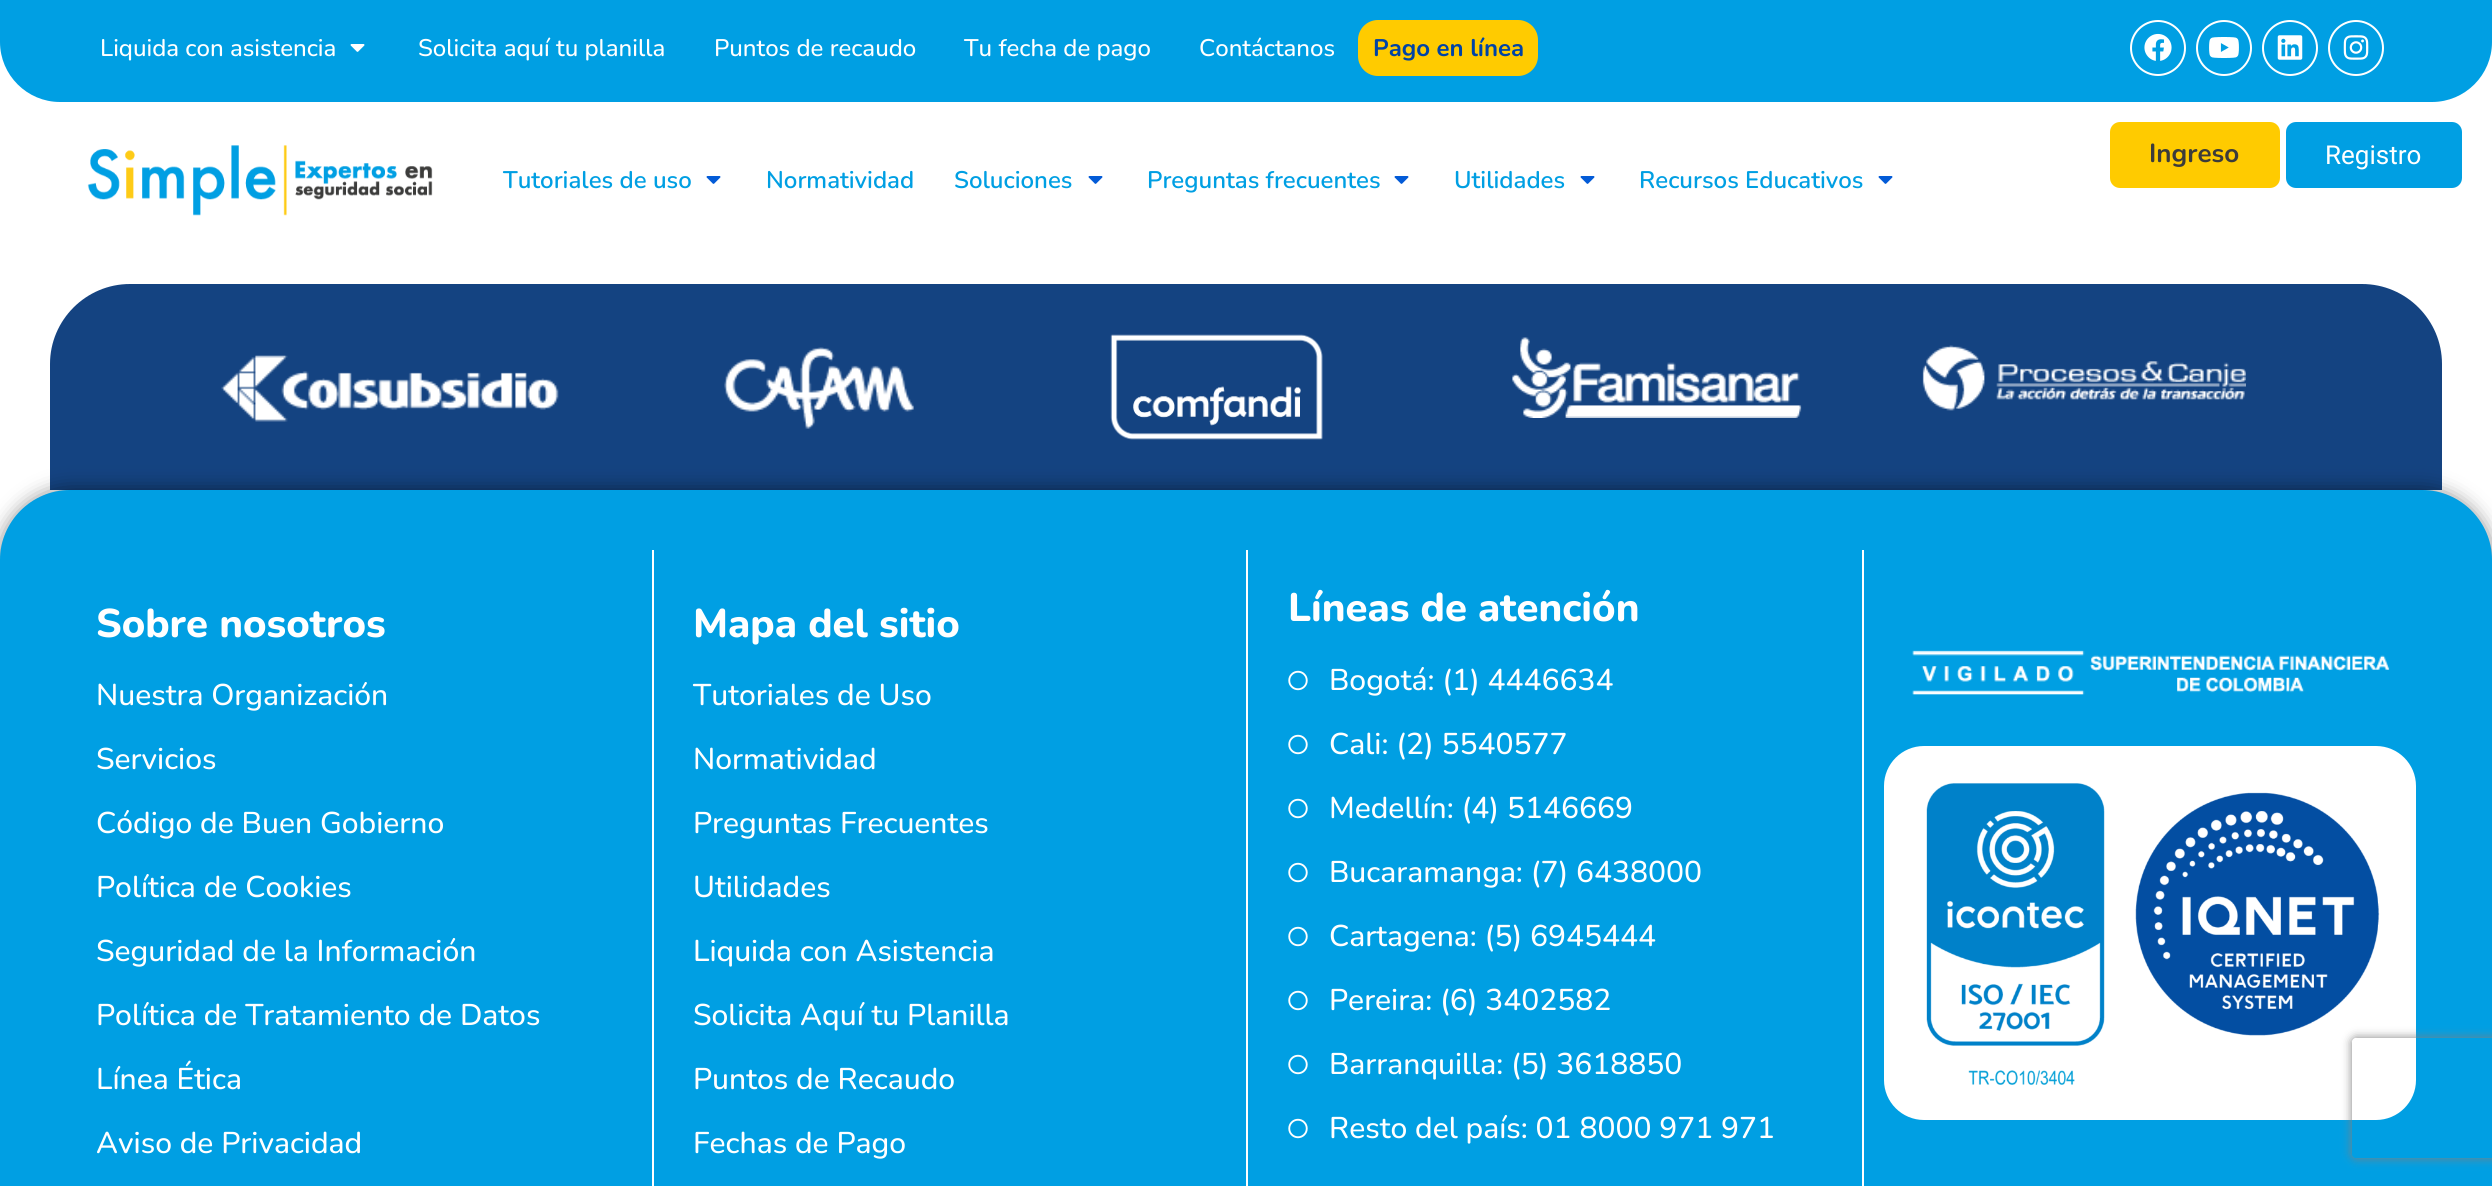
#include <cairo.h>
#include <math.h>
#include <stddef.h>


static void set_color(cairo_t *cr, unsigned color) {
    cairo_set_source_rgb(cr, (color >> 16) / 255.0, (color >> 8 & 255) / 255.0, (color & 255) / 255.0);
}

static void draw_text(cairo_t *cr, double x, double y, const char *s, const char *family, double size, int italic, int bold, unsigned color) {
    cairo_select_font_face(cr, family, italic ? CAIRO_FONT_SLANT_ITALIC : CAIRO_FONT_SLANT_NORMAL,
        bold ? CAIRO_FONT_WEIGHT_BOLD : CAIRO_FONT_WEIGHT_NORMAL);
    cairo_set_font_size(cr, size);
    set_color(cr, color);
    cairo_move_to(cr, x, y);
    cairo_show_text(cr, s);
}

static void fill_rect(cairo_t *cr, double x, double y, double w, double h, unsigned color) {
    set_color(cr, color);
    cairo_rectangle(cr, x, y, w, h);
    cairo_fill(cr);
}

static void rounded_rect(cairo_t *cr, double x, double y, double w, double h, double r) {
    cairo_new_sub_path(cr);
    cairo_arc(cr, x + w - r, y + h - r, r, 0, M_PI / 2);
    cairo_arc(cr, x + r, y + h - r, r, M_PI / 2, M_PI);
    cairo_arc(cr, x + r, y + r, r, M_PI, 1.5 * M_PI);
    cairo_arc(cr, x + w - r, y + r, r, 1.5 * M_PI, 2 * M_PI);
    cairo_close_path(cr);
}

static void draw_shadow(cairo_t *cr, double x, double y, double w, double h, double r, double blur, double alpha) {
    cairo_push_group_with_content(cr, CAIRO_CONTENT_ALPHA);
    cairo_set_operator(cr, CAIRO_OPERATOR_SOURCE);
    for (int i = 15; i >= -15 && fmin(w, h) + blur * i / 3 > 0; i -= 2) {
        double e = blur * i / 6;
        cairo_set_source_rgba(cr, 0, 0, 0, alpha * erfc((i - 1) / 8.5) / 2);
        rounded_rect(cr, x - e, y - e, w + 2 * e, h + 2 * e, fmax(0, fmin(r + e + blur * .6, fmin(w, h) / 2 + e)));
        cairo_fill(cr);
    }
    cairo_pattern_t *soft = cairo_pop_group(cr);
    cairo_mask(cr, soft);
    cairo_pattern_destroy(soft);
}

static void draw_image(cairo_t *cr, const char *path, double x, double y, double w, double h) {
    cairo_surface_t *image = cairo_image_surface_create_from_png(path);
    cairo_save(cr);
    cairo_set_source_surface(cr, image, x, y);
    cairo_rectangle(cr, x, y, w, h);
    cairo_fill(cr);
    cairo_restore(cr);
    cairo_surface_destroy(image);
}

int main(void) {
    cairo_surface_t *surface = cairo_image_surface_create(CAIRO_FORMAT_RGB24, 2492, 1186);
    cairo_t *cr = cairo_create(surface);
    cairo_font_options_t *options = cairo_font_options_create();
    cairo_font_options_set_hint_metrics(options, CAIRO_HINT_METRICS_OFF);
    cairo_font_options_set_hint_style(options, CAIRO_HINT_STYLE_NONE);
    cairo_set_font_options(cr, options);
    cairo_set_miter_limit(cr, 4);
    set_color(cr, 0xFFFFFF);
    cairo_paint(cr);
    set_color(cr, 0x009FE3);
    cairo_new_path(cr);
    cairo_move_to(cr, 0, 0);
    cairo_line_to(cr, 2492, 0);
    cairo_line_to(cr, 2492, 42);
    cairo_curve_to(cr, 2492, 75, 2465, 102, 2432, 102);
    cairo_line_to(cr, 60, 102);
    cairo_curve_to(cr, 27, 102, 0, 75, 0, 42);
    cairo_close_path(cr);
    cairo_fill(cr);
    draw_text(cr, 100, 56, "Liquida con asistencia", "Nunito Medium", 24, 0, 0, 0xFFFFFF);
    draw_image(cr, "assets/img1.png", 350, 44, 15, 8);
    draw_text(cr, 418, 56, "Solicita aquí tu planilla", "Nunito Medium", 24, 0, 0, 0xFFFFFF);
    draw_text(cr, 714, 56, "Puntos de recaudo", "Nunito Medium", 24, 0, 0, 0xFFFFFF);
    draw_text(cr, 964, 56, "Tu fecha de pago", "Nunito Medium", 24, 0, 0, 0xFFFFFF);
    draw_text(cr, 1199, 56, "Contáctanos", "Nunito Medium", 24, 0, 0, 0xFFFFFF);
    set_color(cr, 0xFFCB00);
    rounded_rect(cr, 1358, 20, 180, 56, 20);
    cairo_fill(cr);
    draw_text(cr, 1373, 56, "Pago en línea", "Nunito", 24, 0, 1, 0x0043A6);
    cairo_new_path(cr);
    cairo_arc(cr, 2158, 48, 27, 0, 2 * M_PI);
    set_color(cr, 0xFFFFFF);
    cairo_stroke(cr);
    draw_image(cr, "assets/img2.png", 2144, 33, 28, 28);
    cairo_arc(cr, 2224, 48, 27, 0, 2 * M_PI);
    cairo_stroke(cr);
    draw_image(cr, "assets/img3.png", 2209, 37, 30, 21);
    cairo_arc(cr, 2290, 48, 27, 0, 2 * M_PI);
    cairo_stroke(cr);
    draw_image(cr, "assets/img4.png", 2277, 35, 26, 25);
    cairo_arc(cr, 2356, 48, 27, 0, 2 * M_PI);
    cairo_stroke(cr);
    draw_image(cr, "assets/img5.png", 2343, 35, 26, 25);
    set_color(cr, 0xFFCB00);
    rounded_rect(cr, 2110, 122, 170, 66, 10);
    cairo_fill(cr);
    draw_text(cr, 2149, 162, "Ingreso", "Nunito", 26, 0, 1, 0x3C3C3B);
    set_color(cr, 0x009FE3);
    rounded_rect(cr, 2286, 122, 176, 66, 10);
    cairo_fill(cr);
    draw_text(cr, 2325, 164, "Registro", "Roboto", 26, 0, 0, 0xFFFFFF);
    draw_image(cr, "assets/img6.png", 87, 145, 346, 71);
    draw_text(cr, 503, 188, "Tutoriales de uso", "Nunito SemiBold", 24, 0, 0, 0x009FE3);
    draw_image(cr, "assets/img7.png", 706, 176, 15, 8);
    draw_text(cr, 766, 188, "Normatividad", "Nunito SemiBold", 24, 0, 0, 0x009FE3);
    draw_text(cr, 954, 188, "Soluciones", "Nunito SemiBold", 24, 0, 0, 0x009FE3);
    draw_image(cr, "assets/img7.png", 1088, 176, 15, 8);
    draw_text(cr, 1147, 188, "Preguntas frecuentes", "Nunito SemiBold", 24, 0, 0, 0x009FE3);
    draw_image(cr, "assets/img7.png", 1394, 176, 15, 8);
    draw_text(cr, 1454, 188, "Utilidades", "Nunito SemiBold", 24, 0, 0, 0x009FE3);
    draw_image(cr, "assets/img7.png", 1580, 176, 15, 8);
    draw_text(cr, 1639, 188, "Recursos Educativos", "Nunito SemiBold", 24, 0, 0, 0x009FE3);
    draw_image(cr, "assets/img7.png", 1878, 176, 15, 8);
    set_color(cr, 0x144381);
    cairo_new_path(cr);
    cairo_move_to(cr, 130, 284);
    cairo_line_to(cr, 2362, 284);
    cairo_curve_to(cr, 2406, 284, 2442, 320, 2442, 364);
    cairo_line_to(cr, 2442, 490);
    cairo_line_to(cr, 50, 490);
    cairo_line_to(cr, 50, 364);
    cairo_curve_to(cr, 50, 320, 86, 284, 130, 284);
    cairo_close_path(cr);
    cairo_fill(cr);
    draw_image(cr, "assets/img8.png", 221, 355, 338, 67);
    draw_image(cr, "assets/img9.png", 724, 347, 190, 82);
    draw_image(cr, "assets/img10.png", 1110, 334, 213, 106);
    draw_image(cr, "assets/img11.png", 1512, 337, 290, 81);
    draw_image(cr, "assets/img12.png", 1922, 345, 324, 66);
    set_color(cr, 0x000000);
    draw_shadow(cr, 0, 490, 2492, 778, 70, 10, 0.5);
    set_color(cr, 0x009FE3);
    cairo_new_path(cr);
    cairo_move_to(cr, 70, 490);
    cairo_line_to(cr, 2422, 490);
    cairo_curve_to(cr, 2460.5, 490, 2492, 521.5, 2492, 560);
    cairo_line_to(cr, 2492, 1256);
    cairo_line_to(cr, 0, 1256);
    cairo_line_to(cr, 0, 560);
    cairo_curve_to(cr, 0, 521.5, 31.5, 490, 70, 490);
    cairo_close_path(cr);
    cairo_fill(cr);
    draw_text(cr, 96, 637, "Sobre nosotros", "Nunito ExtraBold", 40, 0, 0, 0xFFFFFF);
    draw_text(cr, 96, 705, "Nuestra Organización", "Nunito Medium", 30, 0, 0, 0xFFFFFF);
    draw_text(cr, 96, 769, "Servicios", "Nunito Medium", 30, 0, 0, 0xFFFFFF);
    draw_text(cr, 96, 833, "Código de Buen Gobierno", "Nunito Medium", 30, 0, 0, 0xFFFFFF);
    draw_text(cr, 96, 897, "Política de Cookies", "Nunito Medium", 30, 0, 0, 0xFFFFFF);
    draw_text(cr, 96, 961, "Seguridad de la Información", "Nunito Medium", 30, 0, 0, 0xFFFFFF);
    draw_text(cr, 96, 1025, "Política de Tratamiento de Datos", "Nunito Medium", 30, 0, 0, 0xFFFFFF);
    draw_text(cr, 96, 1089, "Línea Ética", "Nunito Medium", 30, 0, 0, 0xFFFFFF);
    draw_text(cr, 96, 1153, "Aviso de Privacidad", "Nunito Medium", 30, 0, 0, 0xFFFFFF);
    fill_rect(cr, 652, 550, 2, 636, 0xFFFFFF);
    draw_text(cr, 693, 637, "Mapa del sitio", "Nunito ExtraBold", 40, 0, 0, 0xFFFFFF);
    draw_text(cr, 693, 705, "Tutoriales de Uso", "Nunito Medium", 30, 0, 0, 0xFFFFFF);
    draw_text(cr, 693, 769, "Normatividad", "Nunito Medium", 30, 0, 0, 0xFFFFFF);
    draw_text(cr, 693, 833, "Preguntas Frecuentes", "Nunito Medium", 30, 0, 0, 0xFFFFFF);
    draw_text(cr, 693, 897, "Utilidades", "Nunito Medium", 30, 0, 0, 0xFFFFFF);
    draw_text(cr, 693, 961, "Liquida con Asistencia", "Nunito Medium", 30, 0, 0, 0xFFFFFF);
    draw_text(cr, 693, 1025, "Solicita Aquí tu Planilla", "Nunito Medium", 30, 0, 0, 0xFFFFFF);
    draw_text(cr, 693, 1089, "Puntos de Recaudo", "Nunito Medium", 30, 0, 0, 0xFFFFFF);
    draw_text(cr, 693, 1153, "Fechas de Pago", "Nunito Medium", 30, 0, 0, 0xFFFFFF);
    fill_rect(cr, 1862, 550, 2, 636, 0xFFFFFF);
    fill_rect(cr, 1246, 550, 2, 636, 0xFFFFFF);
    draw_text(cr, 1288, 621, "Líneas de atención", "Nunito ExtraBold", 40, 0, 0, 0xFFFFFF);
    draw_image(cr, "assets/img13.png", 1288, 670, 20, 21);
    draw_text(cr, 1329, 690, "Bogotá: (1) 4446634", "Nunito Medium", 30, 0, 0, 0xFFFFFF);
    draw_image(cr, "assets/img13.png", 1288, 734, 20, 21);
    draw_text(cr, 1329, 754, "Cali: (2) 5540577", "Nunito Medium", 30, 0, 0, 0xFFFFFF);
    draw_image(cr, "assets/img13.png", 1288, 798, 20, 21);
    draw_text(cr, 1329, 818, "Medellín: (4) 5146669", "Nunito Medium", 30, 0, 0, 0xFFFFFF);
    draw_image(cr, "assets/img13.png", 1288, 862, 20, 21);
    draw_text(cr, 1329, 882, "Bucaramanga: (7) 6438000", "Nunito Medium", 30, 0, 0, 0xFFFFFF);
    draw_image(cr, "assets/img13.png", 1288, 926, 20, 21);
    draw_text(cr, 1329, 946, "Cartagena: (5) 6945444", "Nunito Medium", 30, 0, 0, 0xFFFFFF);
    draw_image(cr, "assets/img13.png", 1288, 990, 20, 21);
    draw_text(cr, 1329, 1010, "Pereira: (6) 3402582", "Nunito Medium", 30, 0, 0, 0xFFFFFF);
    draw_image(cr, "assets/img13.png", 1288, 1054, 20, 21);
    draw_text(cr, 1329, 1074, "Barranquilla: (5) 3618850", "Nunito Medium", 30, 0, 0, 0xFFFFFF);
    draw_image(cr, "assets/img13.png", 1288, 1118, 20, 21);
    draw_text(cr, 1329, 1138, "Resto del país: 01 8000 971 971", "Nunito Medium", 30, 0, 0, 0xFFFFFF);
    draw_image(cr, "assets/img14.png", 1912, 650, 478, 45);
    rounded_rect(cr, 1884, 746, 532, 374, 40);
    cairo_fill(cr);
    draw_image(cr, "assets/img15.png", 1926, 783, 454, 302);
    cairo_save(cr);
    cairo_set_fill_rule(cr, CAIRO_FILL_RULE_EVEN_ODD);
    cairo_new_path(cr);
    cairo_move_to(cr, 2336, 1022);
    cairo_line_to(cr, 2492, 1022);
    cairo_line_to(cr, 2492, 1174);
    cairo_line_to(cr, 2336, 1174);
    cairo_close_path(cr);
    cairo_move_to(cr, 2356, 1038);
    cairo_line_to(cr, 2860, 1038);
    cairo_curve_to(cr, 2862, 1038, 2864, 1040, 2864, 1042);
    cairo_line_to(cr, 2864, 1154);
    cairo_curve_to(cr, 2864, 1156, 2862, 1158, 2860, 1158);
    cairo_line_to(cr, 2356, 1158);
    cairo_curve_to(cr, 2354, 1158, 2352, 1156, 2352, 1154);
    cairo_line_to(cr, 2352, 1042);
    cairo_curve_to(cr, 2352, 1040, 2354, 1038, 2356, 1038);
    cairo_close_path(cr);
    cairo_clip(cr);
    set_color(cr, 0x808080);
    draw_shadow(cr, 2352, 1038, 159, 120, 4, 5, 1);
    cairo_restore(cr);
    cairo_surface_write_to_png(surface, "output.png");
    cairo_font_options_destroy(options);
    cairo_destroy(cr);
    cairo_surface_destroy(surface);
    return 0;
}
